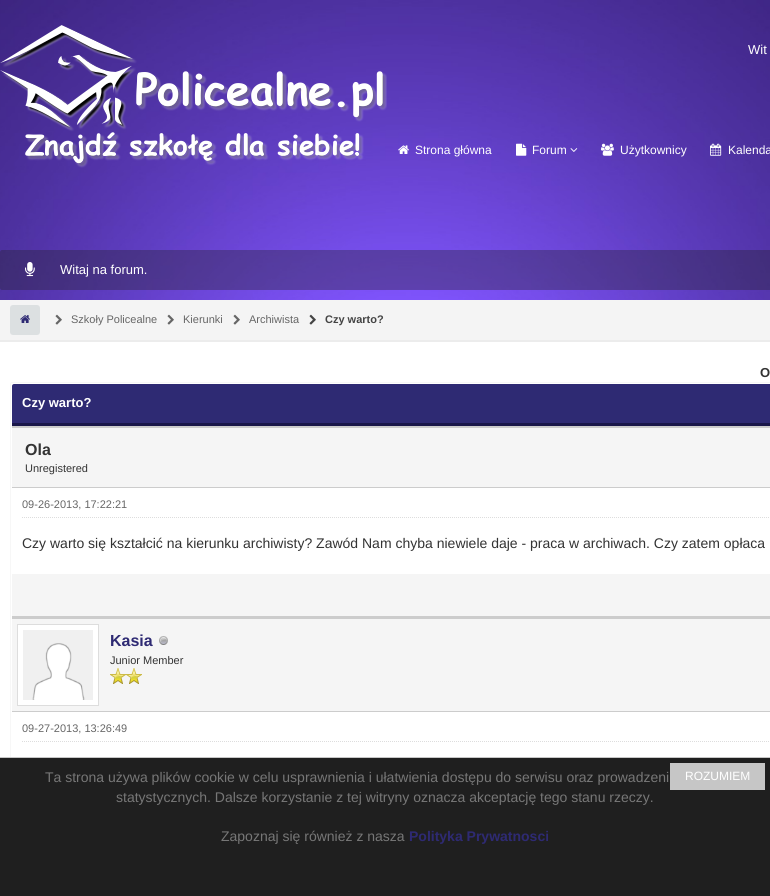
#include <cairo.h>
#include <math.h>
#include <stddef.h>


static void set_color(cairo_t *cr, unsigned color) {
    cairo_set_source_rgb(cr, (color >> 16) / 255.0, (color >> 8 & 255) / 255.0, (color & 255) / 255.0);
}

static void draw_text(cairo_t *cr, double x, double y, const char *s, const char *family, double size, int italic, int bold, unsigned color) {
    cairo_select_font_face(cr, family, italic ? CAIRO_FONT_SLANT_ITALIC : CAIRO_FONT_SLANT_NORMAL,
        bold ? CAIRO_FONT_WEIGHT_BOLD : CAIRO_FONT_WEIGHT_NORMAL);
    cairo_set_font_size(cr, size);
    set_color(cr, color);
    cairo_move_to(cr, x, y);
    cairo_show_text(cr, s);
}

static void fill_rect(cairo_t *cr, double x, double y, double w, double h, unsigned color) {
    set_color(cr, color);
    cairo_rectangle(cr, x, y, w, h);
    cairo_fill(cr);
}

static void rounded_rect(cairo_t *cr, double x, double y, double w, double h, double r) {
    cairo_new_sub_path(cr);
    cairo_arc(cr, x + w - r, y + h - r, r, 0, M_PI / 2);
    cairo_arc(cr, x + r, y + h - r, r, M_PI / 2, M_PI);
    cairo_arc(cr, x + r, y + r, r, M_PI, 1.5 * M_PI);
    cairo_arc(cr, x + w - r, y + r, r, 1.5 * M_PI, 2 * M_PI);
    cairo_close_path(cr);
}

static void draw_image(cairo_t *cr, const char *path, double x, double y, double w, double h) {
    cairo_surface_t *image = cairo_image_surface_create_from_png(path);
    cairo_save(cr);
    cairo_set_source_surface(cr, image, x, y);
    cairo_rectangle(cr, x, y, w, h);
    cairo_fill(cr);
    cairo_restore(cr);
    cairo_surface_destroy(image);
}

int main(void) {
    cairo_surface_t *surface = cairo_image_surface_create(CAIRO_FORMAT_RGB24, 770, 896);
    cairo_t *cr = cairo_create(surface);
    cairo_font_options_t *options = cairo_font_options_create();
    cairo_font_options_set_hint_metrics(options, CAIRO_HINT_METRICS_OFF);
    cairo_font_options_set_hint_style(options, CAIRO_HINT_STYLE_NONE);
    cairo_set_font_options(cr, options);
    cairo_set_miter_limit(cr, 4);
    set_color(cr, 0xFFFFFF);
    cairo_paint(cr);
    draw_image(cr, "assets/img1.png", 0, 0, 770, 300);
    draw_image(cr, "assets/img2.png", 0, 25, 387, 143);
    draw_text(cr, 748, 54, "Wit", "Liberation Sans", 13, 0, 0, 0xFFFFFF);
    draw_image(cr, "assets/img3.png", 398, 145, 11, 9);
    draw_text(cr, 415, 154, "Strona główna", "Liberation Sans", 12, 0, 0, 0xFFFFFF);
    draw_image(cr, "assets/img4.png", 516, 143, 11, 13);
    draw_text(cr, 532, 154, "Forum", "Liberation Sans", 12, 0, 0, 0xFFFFFF);
    draw_image(cr, "assets/img5.png", 570, 148, 8, 4);
    draw_image(cr, "assets/img6.png", 601, 143, 13, 13);
    draw_text(cr, 620, 154, "Użytkownicy", "Liberation Sans", 12, 0, 0, 0xFFFFFF);
    draw_image(cr, "assets/img7.png", 710, 143, 12, 13);
    draw_text(cr, 728, 154, "Kalenda", "Liberation Sans", 12, 0, 0, 0xFFFFFF);
    cairo_set_source_rgba(cr, 0.133, 0.133, 0.133, 0.34);
    rounded_rect(cr, 0, 250, 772, 40, 2);
    cairo_fill(cr);
    draw_image(cr, "assets/img8.png", 25, 262, 10, 15);
    draw_text(cr, 60, 274, "Witaj na forum.", "Liberation Sans", 13, 0, 0, 0xFFFFFF);
    fill_rect(cr, 0, 340, 770, 2, 0xECECEC);
    fill_rect(cr, 0, 300, 770, 40, 0xF4F4F4);
    set_color(cr, 0xDCE0E1);
    rounded_rect(cr, 10, 305, 30, 30, 3);
    cairo_fill(cr);
    draw_image(cr, "assets/img9.png", 20, 315, 10, 8);
    draw_image(cr, "assets/img10.png", 55, 314, 7, 11);
    draw_text(cr, 71, 323, "Szkoły Policealne", "Liberation Sans", 11, 0, 0, 0x666666);
    draw_image(cr, "assets/img10.png", 167, 314, 7, 11);
    draw_text(cr, 183, 323, "Kierunki", "Liberation Sans", 11, 0, 0, 0x666666);
    draw_image(cr, "assets/img10.png", 233, 314, 7, 11);
    draw_text(cr, 249, 323, "Archiwista", "Liberation Sans", 11, 0, 0, 0x666666);
    draw_image(cr, "assets/img11.png", 309, 314, 7, 11);
    draw_text(cr, 325, 323, "Czy warto?", "Liberation Sans", 11, 0, 1, 0x444444);
    draw_text(cr, 760, 377, "O", "Liberation Sans", 13, 0, 1, 0x333333);
    rounded_rect(cr, 10.5, 382.5, 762, 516, 1.5);
    set_color(cr, 0xF7F7F7);
    cairo_set_line_width(cr, 1);
    cairo_stroke(cr);
    set_color(cr, 0x2E2A73);
    cairo_new_path(cr);
    cairo_move_to(cr, 14, 384);
    cairo_line_to(cr, 770, 384);
    cairo_curve_to(cr, 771, 384, 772, 385, 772, 386);
    cairo_line_to(cr, 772, 426);
    cairo_line_to(cr, 12, 426);
    cairo_line_to(cr, 12, 386);
    cairo_curve_to(cr, 12, 385, 13, 384, 14, 384);
    cairo_close_path(cr);
    cairo_fill(cr);
    fill_rect(cr, 12, 423, 758, 3, 0x191649);
    draw_text(cr, 22, 407, "Czy warto?", "Liberation Sans", 13, 0, 1, 0xFFFFFF);
    fill_rect(cr, 12, 428, 758, 59, 0xF5F5F5);
    fill_rect(cr, 12, 426, 758, 2, 0xCCCCCC);
    fill_rect(cr, 12, 487, 758, 1, 0xCCCCCC);
    draw_text(cr, 25, 455, "Ola", "Liberation Sans", 16, 0, 1, 0x333333);
    draw_text(cr, 25, 472, "Unregistered", "Liberation Sans", 11, 0, 0, 0x333333);
    cairo_new_path(cr);
    cairo_move_to(cr, 22, 517.5);
    cairo_line_to(cr, 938, 517.5);
    set_color(cr, 0xDDDDDD);
    cairo_set_dash(cr, (double[]){1, 1}, 2, 0);
    cairo_stroke(cr);
    draw_text(cr, 22, 508, "09-26-2013, 17:22:21", "Liberation Sans", 11, 0, 0, 0x666666);
    draw_text(cr, 22, 548, "Czy warto się kształcić na kierunku archiwisty? Zawód Nam chyba niewiele daje - praca w archiwach. Czy zatem opłaca", "Liberation Sans", 14, 0, 0, 0x333333);
    fill_rect(cr, 12, 574, 758, 42, 0xF5F5F5);
    fill_rect(cr, 12, 616, 758, 3, 0xCCCCCC);
    fill_rect(cr, 12, 619, 758, 92, 0xF5F5F5);
    fill_rect(cr, 12, 711, 758, 1, 0xCCCCCC);
    set_color(cr, 0xFFFFFF);
    cairo_rectangle(cr, 17.5, 624.5, 81, 81);
    cairo_fill_preserve(cr);
    set_color(cr, 0xDDDDDD);
    cairo_set_dash(cr, NULL, 0, 0);
    cairo_stroke(cr);
    draw_image(cr, "assets/img12.png", 23, 630, 70, 70);
    draw_text(cr, 110, 646, "Kasia", "Liberation Sans", 16, 0, 1, 0x2E2A73);
    draw_image(cr, "assets/img13.png", 159, 636, 9, 9);
    draw_text(cr, 110, 664, "Junior Member", "Liberation Sans", 11, 0, 0, 0x333333);
    draw_image(cr, "assets/img14.png", 110, 668, 16, 16);
    draw_image(cr, "assets/img14.png", 126, 668, 16, 16);
    cairo_new_path(cr);
    cairo_move_to(cr, 22, 741.5);
    cairo_line_to(cr, 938, 741.5);
    set_color(cr, 0xDDDDDD);
    cairo_set_dash(cr, (double[]){1, 1}, 2, 0);
    cairo_stroke(cr);
    draw_text(cr, 22, 732, "09-27-2013, 13:26:49", "Liberation Sans", 11, 0, 0, 0x666666);
    fill_rect(cr, 0, 758, 770, 138, 0x1F1F1F);
    fill_rect(cr, 0, 757, 770, 1, 0xC6C6C6);
    draw_text(cr, 45, 782, "Ta strona używa plików cookie w celu usprawnienia i ułatwienia dostępu do serwisu oraz prowadzeni", "Liberation Sans", 14, 0, 0, 0x777777);
    draw_text(cr, 116, 802, "statystycznych. Dalsze korzystanie z tej witryny oznacza akceptację tego stanu rzeczy.", "Liberation Sans", 14, 0, 0, 0x777777);
    draw_text(cr, 221, 841, "Zapoznaj się również z nasza", "Liberation Sans", 14, 0, 0, 0x777777);
    draw_text(cr, 409, 841, "Polityka Prywatnosci", "Liberation Sans", 14, 0, 1, 0x2E2A73);
    fill_rect(cr, 670, 763, 95, 27, 0xC6C6C6);
    draw_text(cr, 685, 780, "ROZUMIEM", "Liberation Sans", 12, 0, 0, 0xFFFFFF);
    cairo_surface_write_to_png(surface, "output.png");
    cairo_font_options_destroy(options);
    cairo_destroy(cr);
    cairo_surface_destroy(surface);
    return 0;
}
